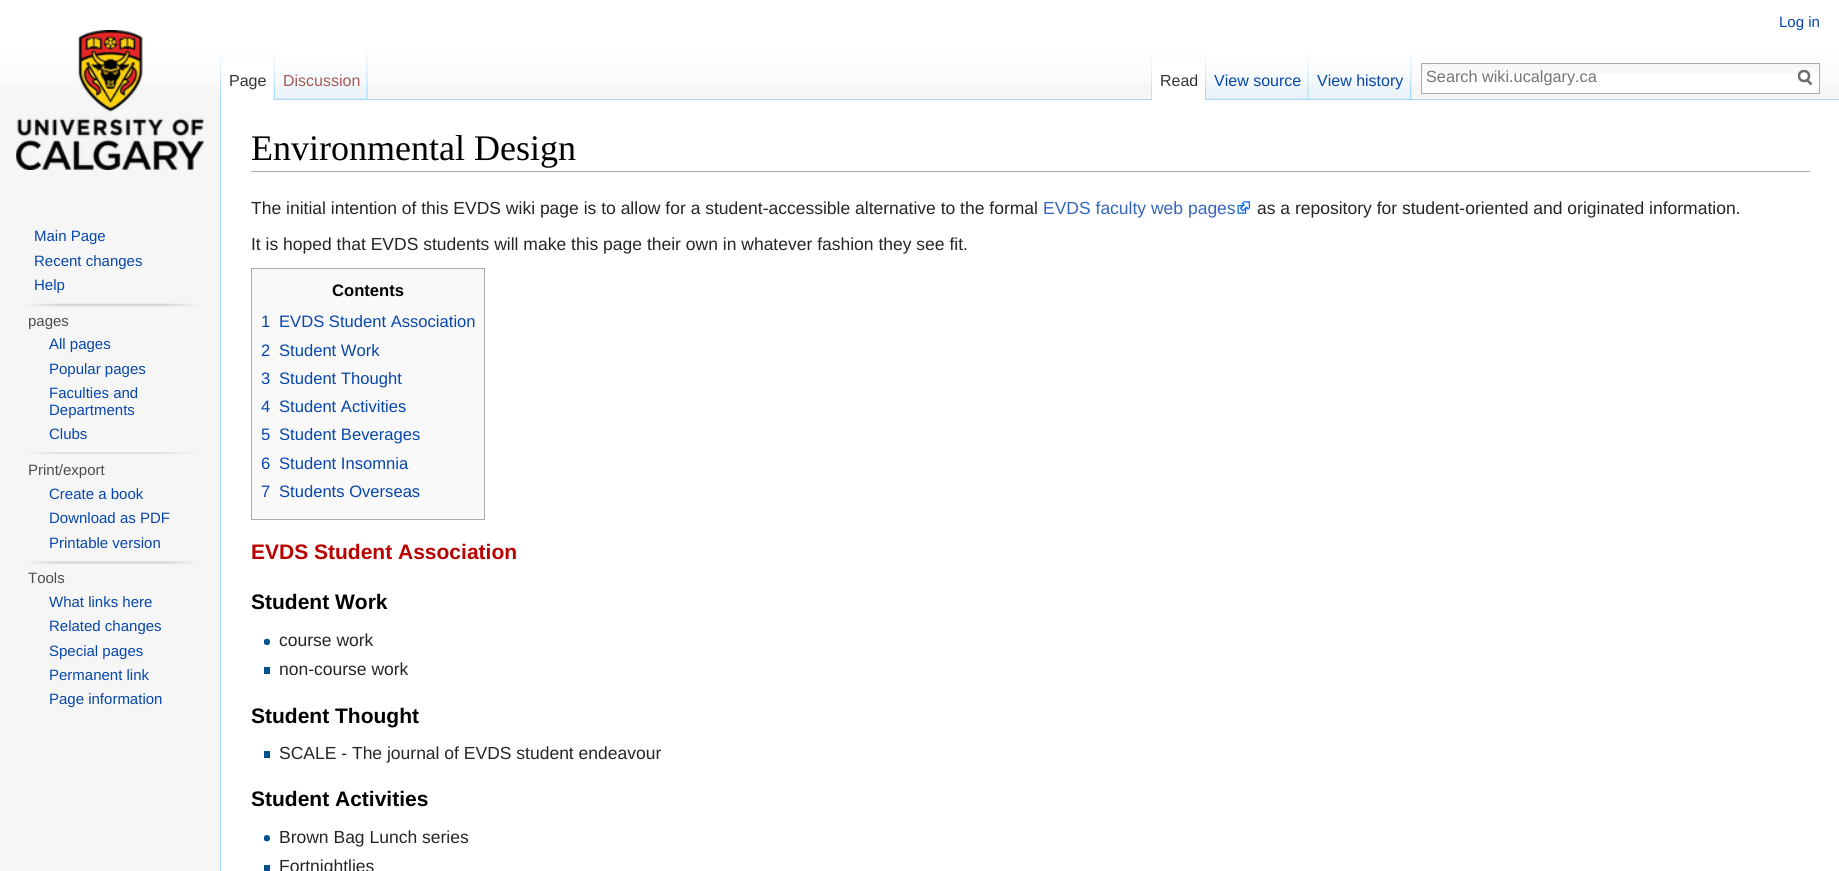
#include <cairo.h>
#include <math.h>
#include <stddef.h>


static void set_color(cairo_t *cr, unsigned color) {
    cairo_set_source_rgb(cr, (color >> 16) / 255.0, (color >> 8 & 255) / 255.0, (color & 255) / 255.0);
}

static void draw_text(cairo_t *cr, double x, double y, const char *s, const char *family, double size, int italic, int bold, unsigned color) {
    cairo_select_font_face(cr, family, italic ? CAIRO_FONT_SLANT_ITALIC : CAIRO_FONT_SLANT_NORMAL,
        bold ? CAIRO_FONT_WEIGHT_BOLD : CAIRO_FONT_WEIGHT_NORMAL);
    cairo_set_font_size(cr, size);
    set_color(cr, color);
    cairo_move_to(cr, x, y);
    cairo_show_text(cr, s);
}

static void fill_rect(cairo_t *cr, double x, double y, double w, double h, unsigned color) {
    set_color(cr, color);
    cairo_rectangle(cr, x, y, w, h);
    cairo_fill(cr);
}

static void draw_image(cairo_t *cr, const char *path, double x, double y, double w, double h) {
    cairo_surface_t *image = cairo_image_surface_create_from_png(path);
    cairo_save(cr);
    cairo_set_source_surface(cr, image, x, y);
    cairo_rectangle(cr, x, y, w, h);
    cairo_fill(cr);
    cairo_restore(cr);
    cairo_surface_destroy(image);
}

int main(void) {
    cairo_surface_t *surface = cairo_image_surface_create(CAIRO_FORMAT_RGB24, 1839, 871);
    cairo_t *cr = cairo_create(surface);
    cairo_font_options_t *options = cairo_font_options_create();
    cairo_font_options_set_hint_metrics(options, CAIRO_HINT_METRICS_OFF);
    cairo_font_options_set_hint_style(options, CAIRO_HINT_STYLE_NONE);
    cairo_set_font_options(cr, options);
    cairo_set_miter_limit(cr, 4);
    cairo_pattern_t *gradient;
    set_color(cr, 0xF6F6F6);
    cairo_paint(cr);
    gradient = cairo_pattern_create_linear(920, 0, 920, 100);
    cairo_pattern_add_color_stop_rgba(gradient, 0.5, 1, 1, 1, 1);
    cairo_pattern_add_color_stop_rgba(gradient, 1, 0.965, 0.965, 0.965, 1);
    cairo_set_source(cr, gradient);
    cairo_pattern_destroy(gradient);
    cairo_rectangle(cr, 0, 0, 1839, 86);
    cairo_fill(cr);
    draw_text(cr, 1779, 27, "Log in", "Liberation Sans", 15, 0, 0, 0x0645AD);
    draw_image(cr, "assets/img1.png", 220, 50, 1, 49);
    fill_rect(cr, 221, 64, 53, 36, 0xFFFFFF);
    draw_image(cr, "assets/img2.png", 273, 50, 2, 50);
    draw_text(cr, 229, 86, "Page", "Liberation Sans", 16, 0, 0, 0x333333);
    fill_rect(cr, 367, 50, 1, 50, 0xF3F3F3);
    draw_image(cr, "assets/img3.png", 275, 50, 93, 50);
    draw_image(cr, "assets/img4.png", 366, 52, 2, 48);
    draw_text(cr, 283, 86, "Discussion", "Liberation Sans", 16, 0, 0, 0xA55858);
    draw_image(cr, "assets/img5.png", 1151, 52, 1, 47);
    draw_image(cr, "assets/img6.png", 1411, 50, 1, 49);
    fill_rect(cr, 368, 99, 1471, 1, 0xA7D7F9);
    fill_rect(cr, 1152, 64, 55, 36, 0xFFFFFF);
    draw_image(cr, "assets/img7.png", 1205, 50, 2, 50);
    draw_text(cr, 1160, 86, "Read", "Liberation Sans", 16, 0, 0, 0x333333);
    draw_image(cr, "assets/img8.png", 1206, 50, 103, 50);
    draw_image(cr, "assets/img9.png", 1307, 53, 2, 47);
    draw_text(cr, 1214, 86, "View source", "Liberation Sans", 16, 0, 0, 0x0645AD);
    draw_image(cr, "assets/img10.png", 1308, 50, 103, 50);
    draw_image(cr, "assets/img11.png", 1410, 50, 2, 49);
    draw_text(cr, 1317, 86, "View history", "Liberation Sans", 16, 0, 0, 0x0645AD);
    fill_rect(cr, 1422, 74, 397, 19, 0xFFFFFF);
    draw_image(cr, "assets/img12.png", 1422, 64, 397, 10);
    cairo_rectangle(cr, 1421.5, 63.5, 398, 30);
    set_color(cr, 0xAAAAAA);
    cairo_set_line_width(cr, 1);
    cairo_stroke(cr);
    draw_text(cr, 1426, 82, "Search wiki.ucalgary.ca", "Liberation Sans", 16.25, 0, 0, 0x757575);
    cairo_new_path(cr);
    cairo_move_to(cr, 1811.5, 84.5);
    cairo_line_to(cr, 1806.5, 79.5);
    set_color(cr, 0x6C6C6C);
    cairo_set_line_width(cr, 2.5);
    cairo_stroke(cr);
    cairo_save(cr);
    cairo_rectangle(cr, 1798, 70, 15, 16);
    cairo_clip(cr);
    cairo_arc(cr, 1804, 76, 5, 0, 2 * M_PI);
    cairo_stroke(cr);
    cairo_restore(cr);
    draw_image(cr, "assets/img13.png", 16, 30, 188, 140);
    draw_text(cr, 34, 241, "Main Page", "Liberation Sans", 15, 0, 0, 0x0645AD);
    draw_text(cr, 34, 266, "Recent changes", "Liberation Sans", 15, 0, 0, 0x0645AD);
    draw_text(cr, 34, 290, "Help", "Liberation Sans", 15, 0, 0, 0x0645AD);
    draw_image(cr, "assets/img14.png", 27, 303, 170, 4);
    draw_text(cr, 28, 326, "pages", "Liberation Sans", 15, 0, 0, 0x4D4D4D);
    draw_text(cr, 49, 349, "All pages", "Liberation Sans", 15, 0, 0, 0x0645AD);
    draw_text(cr, 49, 374, "Popular pages", "Liberation Sans", 15, 0, 0, 0x0645AD);
    draw_text(cr, 49, 398, "Faculties and", "Liberation Sans", 15, 0, 0, 0x0645AD);
    draw_text(cr, 49, 415, "Departments", "Liberation Sans", 15, 0, 0, 0x0645AD);
    draw_text(cr, 49, 439, "Clubs", "Liberation Sans", 15, 0, 0, 0x0645AD);
    draw_image(cr, "assets/img15.png", 27, 452, 170, 2);
    draw_text(cr, 28, 475, "Print/export", "Liberation Sans", 15, 0, 0, 0x4D4D4D);
    draw_text(cr, 49, 499, "Create a book", "Liberation Sans", 15, 0, 0, 0x0645AD);
    draw_text(cr, 49, 523, "Download as PDF", "Liberation Sans", 15, 0, 0, 0x0645AD);
    draw_text(cr, 49, 548, "Printable version", "Liberation Sans", 15, 0, 0, 0x0645AD);
    draw_image(cr, "assets/img16.png", 27, 561, 170, 3);
    draw_text(cr, 28, 583, "Tools", "Liberation Sans", 15, 0, 0, 0x4D4D4D);
    draw_text(cr, 49, 607, "What links here", "Liberation Sans", 15, 0, 0, 0x0645AD);
    draw_text(cr, 49, 631, "Related changes", "Liberation Sans", 15, 0, 0, 0x0645AD);
    draw_text(cr, 49, 656, "Special pages", "Liberation Sans", 15, 0, 0, 0x0645AD);
    draw_text(cr, 49, 680, "Permanent link", "Liberation Sans", 15, 0, 0, 0x0645AD);
    draw_text(cr, 49, 704, "Page information", "Liberation Sans", 15, 0, 0, 0x0645AD);
    fill_rect(cr, 221, 100, 1618, 771, 0xFFFFFF);
    fill_rect(cr, 220, 99, 1, 772, 0xA7D7F9);
    fill_rect(cr, 251, 171, 1559, 1, 0xAAAAAA);
    draw_text(cr, 251, 160, "Environmental Design", "Liberation Serif", 36, 0, 0, 0x000000);
    draw_text(cr, 251, 214, "The initial intention of this EVDS wiki page is to allow for a student-accessible alternative to the formal", "Liberation Sans", 17.5, 0, 0, 0x252525);
    draw_text(cr, 1043, 214, "EVDS faculty web pages", "Liberation Sans", 17.5, 0, 0, 0x3366BB);
    draw_image(cr, "assets/img17.png", 1237, 201, 13, 13);
    draw_text(cr, 1257, 214, "as a repository for student-oriented and originated information.", "Liberation Sans", 17.5, 0, 0, 0x252525);
    draw_text(cr, 251, 250, "It is hoped that EVDS students will make this page their own in whatever fashion they see fit.", "Liberation Sans", 17.5, 0, 0, 0x252525);
    set_color(cr, 0xF9F9F9);
    cairo_rectangle(cr, 251.5, 268.5, 233, 251);
    cairo_fill_preserve(cr);
    set_color(cr, 0xAAAAAA);
    cairo_set_line_width(cr, 1);
    cairo_stroke(cr);
    draw_text(cr, 332, 296, "Contents", "Liberation Sans", 16.6, 0, 1, 0x000000);
    draw_text(cr, 261, 327, "1", "Liberation Sans", 16.6, 0, 0, 0x0645AD);
    draw_text(cr, 279, 327, "EVDS Student Association", "Liberation Sans", 16.6, 0, 0, 0x0645AD);
    draw_text(cr, 261, 356, "2", "Liberation Sans", 16.6, 0, 0, 0x0645AD);
    draw_text(cr, 279, 356, "Student Work", "Liberation Sans", 16.6, 0, 0, 0x0645AD);
    draw_text(cr, 261, 384, "3", "Liberation Sans", 16.6, 0, 0, 0x0645AD);
    draw_text(cr, 279, 384, "Student Thought", "Liberation Sans", 16.6, 0, 0, 0x0645AD);
    draw_text(cr, 261, 412, "4", "Liberation Sans", 16.6, 0, 0, 0x0645AD);
    draw_text(cr, 279, 412, "Student Activities", "Liberation Sans", 16.6, 0, 0, 0x0645AD);
    draw_text(cr, 261, 440, "5", "Liberation Sans", 16.6, 0, 0, 0x0645AD);
    draw_text(cr, 279, 440, "Student Beverages", "Liberation Sans", 16.6, 0, 0, 0x0645AD);
    draw_text(cr, 261, 469, "6", "Liberation Sans", 16.6, 0, 0, 0x0645AD);
    draw_text(cr, 279, 469, "Student Insomnia", "Liberation Sans", 16.6, 0, 0, 0x0645AD);
    draw_text(cr, 261, 497, "7", "Liberation Sans", 16.6, 0, 0, 0x0645AD);
    draw_text(cr, 279, 497, "Students Overseas", "Liberation Sans", 16.6, 0, 0, 0x0645AD);
    draw_text(cr, 251, 559, "EVDS Student Association", "Liberation Sans", 21, 0, 1, 0xBA0000);
    draw_text(cr, 251, 609, "Student Work", "Liberation Sans", 21, 0, 1, 0x000000);
    draw_image(cr, "assets/img18.png", 264, 638, 6, 7);
    draw_text(cr, 279, 646, "course work", "Liberation Sans", 17.5, 0, 0, 0x252525);
    fill_rect(cr, 264, 667, 6, 7, 0x00528C);
    draw_text(cr, 279, 675, "non-course work", "Liberation Sans", 17.5, 0, 0, 0x252525);
    draw_text(cr, 251, 723, "Student Thought", "Liberation Sans", 21, 0, 1, 0x000000);
    fill_rect(cr, 264, 751, 6, 7, 0x00528C);
    draw_text(cr, 279, 759, "SCALE - The journal of EVDS student endeavour", "Liberation Sans", 17.5, 0, 0, 0x252525);
    draw_text(cr, 251, 806, "Student Activities", "Liberation Sans", 21, 0, 1, 0x000000);
    draw_image(cr, "assets/img19.png", 264, 835, 6, 7);
    draw_text(cr, 279, 843, "Brown Bag Lunch series", "Liberation Sans", 17.5, 0, 0, 0x252525);
    fill_rect(cr, 264, 865, 6, 6, 0x00528C);
    draw_text(cr, 279, 872, "Fortnightlies", "Liberation Sans", 17.5, 0, 0, 0x252525);
    cairo_surface_write_to_png(surface, "output.png");
    cairo_font_options_destroy(options);
    cairo_destroy(cr);
    cairo_surface_destroy(surface);
    return 0;
}
